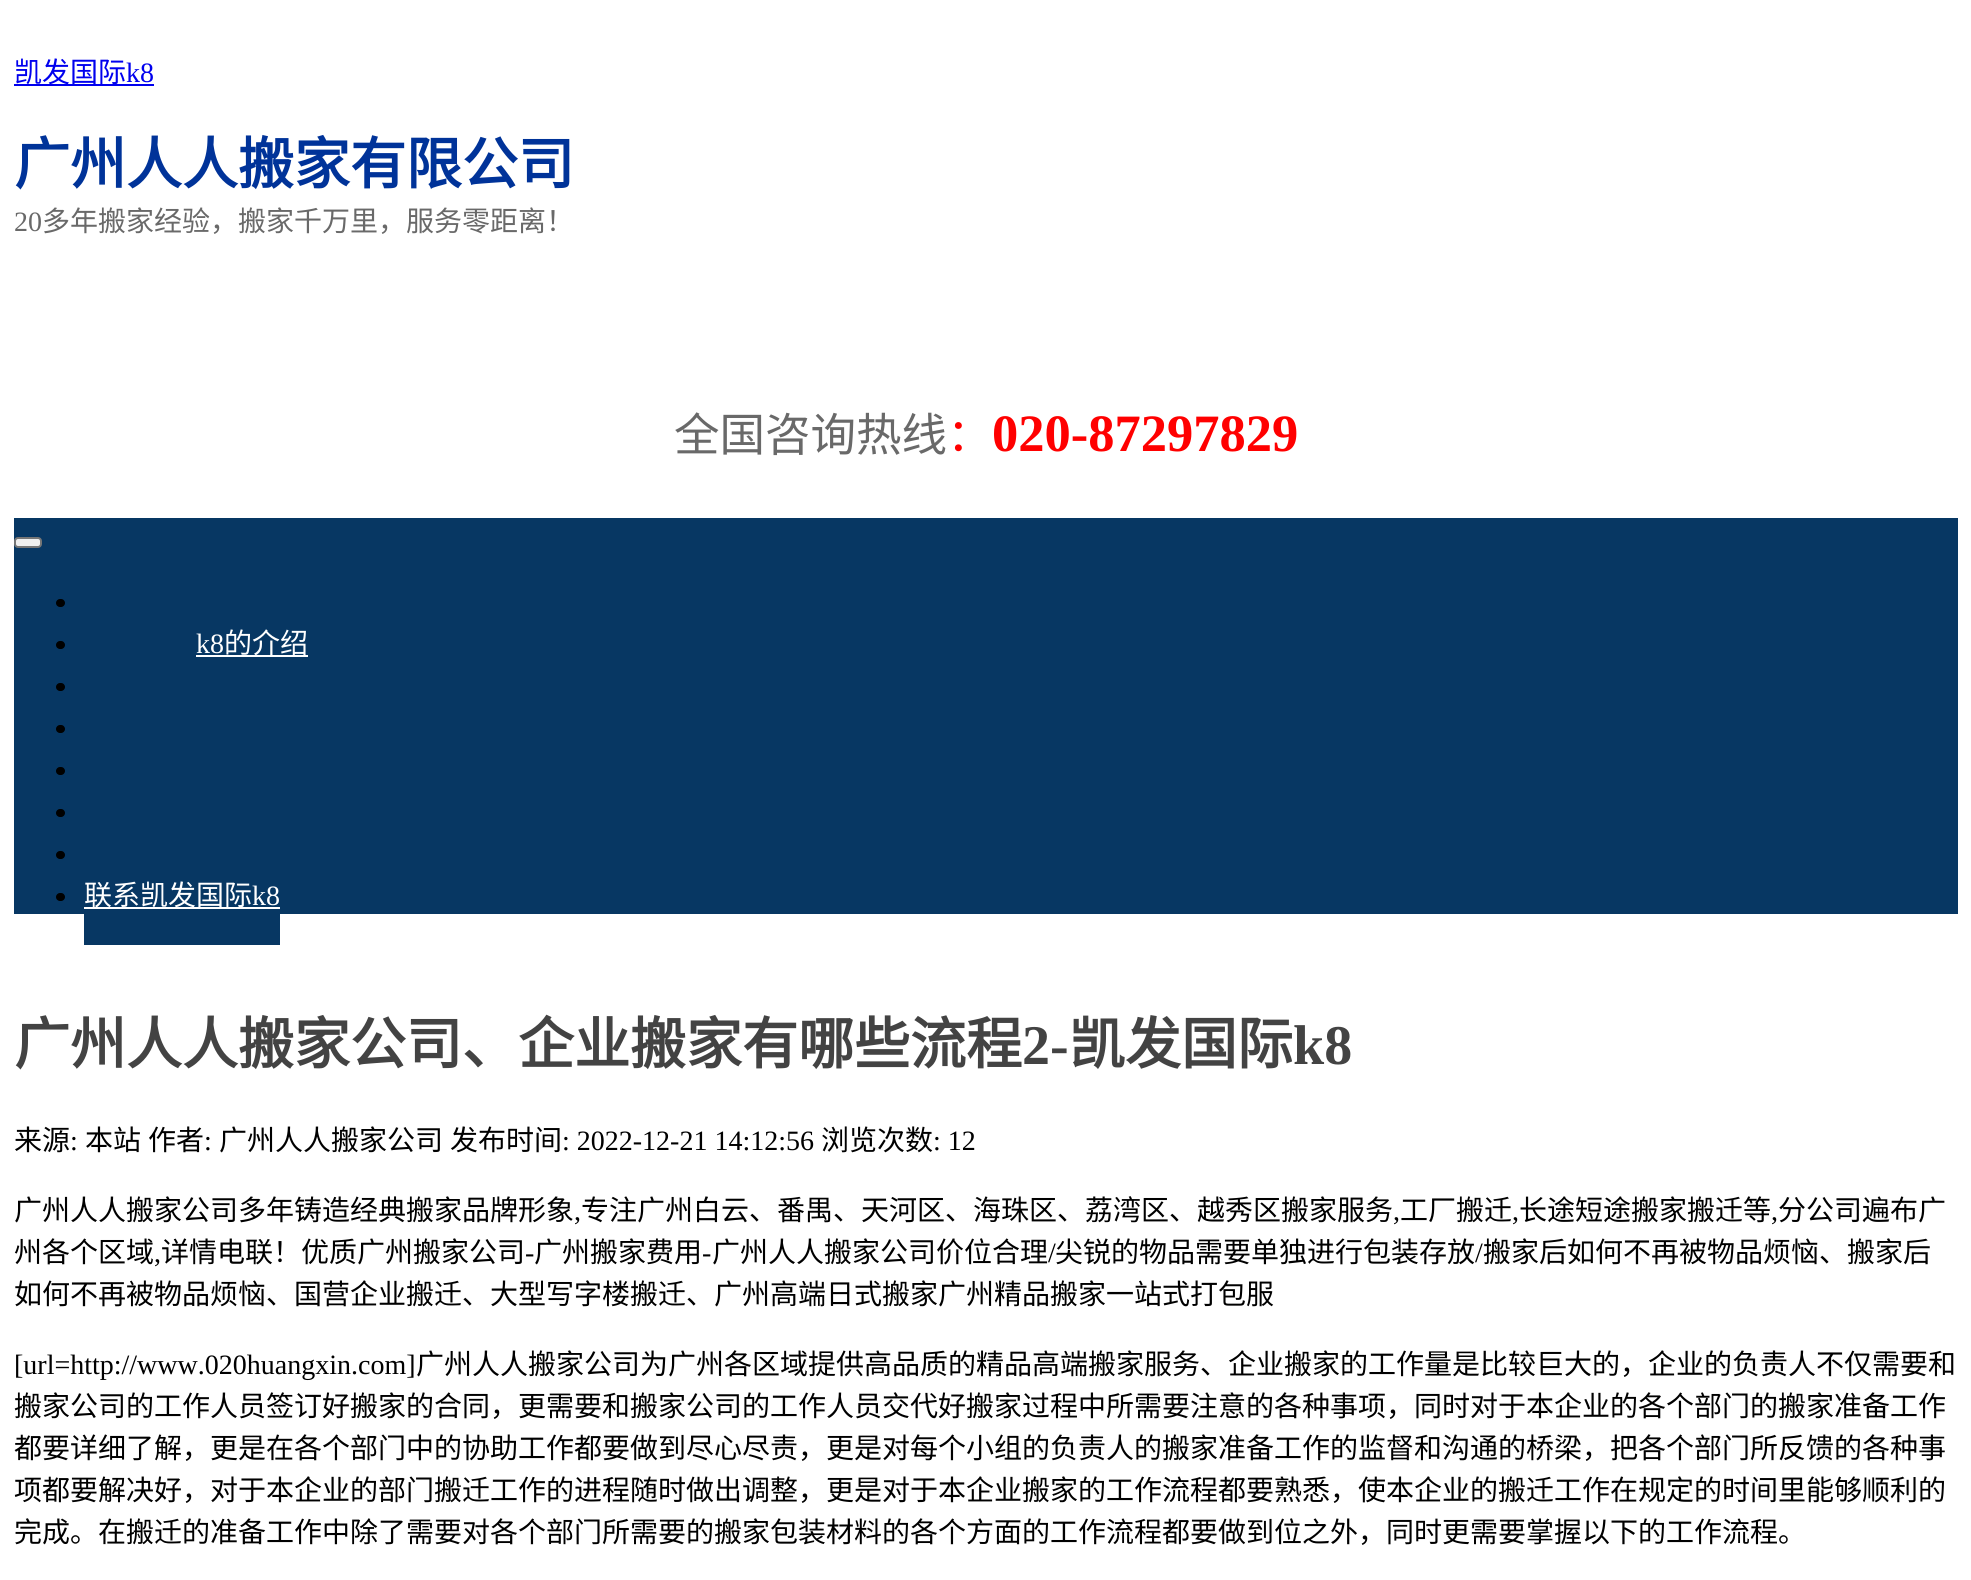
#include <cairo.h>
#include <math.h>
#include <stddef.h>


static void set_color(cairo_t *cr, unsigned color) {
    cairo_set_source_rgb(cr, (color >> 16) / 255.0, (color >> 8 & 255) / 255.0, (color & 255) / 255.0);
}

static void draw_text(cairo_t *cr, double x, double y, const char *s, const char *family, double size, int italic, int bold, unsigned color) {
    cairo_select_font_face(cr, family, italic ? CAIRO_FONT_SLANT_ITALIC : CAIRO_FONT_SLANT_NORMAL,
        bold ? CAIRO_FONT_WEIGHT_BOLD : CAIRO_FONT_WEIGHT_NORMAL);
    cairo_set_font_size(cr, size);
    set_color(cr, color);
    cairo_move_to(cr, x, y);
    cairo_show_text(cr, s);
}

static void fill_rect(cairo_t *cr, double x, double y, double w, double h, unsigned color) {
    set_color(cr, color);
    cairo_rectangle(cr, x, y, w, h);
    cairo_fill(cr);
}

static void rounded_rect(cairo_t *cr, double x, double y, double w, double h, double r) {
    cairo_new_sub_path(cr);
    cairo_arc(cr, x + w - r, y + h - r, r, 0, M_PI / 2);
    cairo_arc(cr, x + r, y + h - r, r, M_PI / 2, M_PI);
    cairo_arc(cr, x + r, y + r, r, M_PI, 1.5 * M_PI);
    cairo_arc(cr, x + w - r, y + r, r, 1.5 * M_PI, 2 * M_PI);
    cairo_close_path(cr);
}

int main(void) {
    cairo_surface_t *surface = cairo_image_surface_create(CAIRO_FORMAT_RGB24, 1971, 1580);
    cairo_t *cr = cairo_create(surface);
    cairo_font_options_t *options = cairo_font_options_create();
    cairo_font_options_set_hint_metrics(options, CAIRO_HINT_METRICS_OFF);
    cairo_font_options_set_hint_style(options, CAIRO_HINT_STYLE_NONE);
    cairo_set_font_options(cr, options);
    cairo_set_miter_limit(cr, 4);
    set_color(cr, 0xFFFFFF);
    cairo_paint(cr);
    fill_rect(cr, 14, 84, 140, 2, 0x0000EE);
    draw_text(cr, 14, 82, "凯发国际", "Noto Sans CJK SC", 28, 0, 0, 0x0000EE);
    draw_text(cr, 126, 82, "k8", "Liberation Serif", 28, 0, 0, 0x0000EE);
    draw_text(cr, 14, 184, "广州人人搬家有限公司", "Noto Sans CJK SC", 56, 0, 1, 0x003399);
    draw_text(cr, 14, 231, "20", "Liberation Serif", 28, 0, 0, 0x696969);
    draw_text(cr, 42, 231, "多年搬家经验，搬家千万里，服务零距离！", "Noto Sans CJK SC", 28, 0, 0, 0x696969);
    draw_text(cr, 674, 451, "全国咨询热线", "Noto Sans CJK SC", 45.5, 0, 0, 0x696969);
    draw_text(cr, 947, 451, "：", "Noto Sans CJK SC", 45.5, 0, 0, 0xFF0000);
    draw_text(cr, 992, 451, "020-87297829", "Liberation Serif", 52.5, 0, 1, 0xFF0000);
    fill_rect(cr, 14, 518, 1944, 396, 0x073763);
    set_color(cr, 0xEFEFEF);
    rounded_rect(cr, 15, 538, 26, 9, 3);
    cairo_fill_preserve(cr);
    set_color(cr, 0x767676);
    cairo_stroke(cr);
    set_color(cr, 0x000000);
    rounded_rect(cr, 56, 599, 9, 8, 4);
    cairo_fill(cr);
    rounded_rect(cr, 56, 641, 9, 8, 4);
    cairo_fill(cr);
    draw_text(cr, 196, 653, "k8", "Liberation Serif", 28, 0, 0, 0xFFFFFF);
    fill_rect(cr, 196, 655, 112, 2, 0xFFFFFF);
    draw_text(cr, 224, 653, "的介绍", "Noto Sans CJK SC", 28, 0, 0, 0xFFFFFF);
    set_color(cr, 0x000000);
    rounded_rect(cr, 56, 683, 9, 8, 4);
    cairo_fill(cr);
    rounded_rect(cr, 56, 725, 9, 8, 4);
    cairo_fill(cr);
    rounded_rect(cr, 56, 767, 9, 8, 4);
    cairo_fill(cr);
    rounded_rect(cr, 56, 809, 9, 8, 4);
    cairo_fill(cr);
    rounded_rect(cr, 56, 851, 9, 8, 4);
    cairo_fill(cr);
    rounded_rect(cr, 56, 893, 9, 8, 4);
    cairo_fill(cr);
    fill_rect(cr, 84, 907, 196, 2, 0xFFFFFF);
    draw_text(cr, 84, 905, "联系凯发国际", "Noto Sans CJK SC", 28, 0, 0, 0xFFFFFF);
    draw_text(cr, 252, 905, "k8", "Liberation Serif", 28, 0, 0, 0xFFFFFF);
    fill_rect(cr, 84, 914, 196, 31, 0x073763);
    draw_text(cr, 14, 1064, "广州人人搬家公司、企业搬家有哪些流程", "Noto Sans CJK SC", 56, 0, 1, 0x434343);
    draw_text(cr, 1022, 1064, "2-", "Liberation Serif", 56, 0, 1, 0x434343);
    draw_text(cr, 1069, 1064, "凯发国际", "Noto Sans CJK SC", 56, 0, 1, 0x434343);
    draw_text(cr, 1293, 1064, "k8", "Liberation Serif", 56, 0, 1, 0x434343);
    draw_text(cr, 14, 1150, "来源", "Noto Sans CJK SC", 28, 0, 0, 0x000000);
    draw_text(cr, 70, 1150, ":", "Liberation Serif", 28, 0, 0, 0x000000);
    draw_text(cr, 85, 1150, "本站", "Noto Sans CJK SC", 28, 0, 0, 0x000000);
    draw_text(cr, 148, 1150, "作者", "Noto Sans CJK SC", 28, 0, 0, 0x000000);
    draw_text(cr, 204, 1150, ":", "Liberation Serif", 28, 0, 0, 0x000000);
    draw_text(cr, 219, 1150, "广州人人搬家公司", "Noto Sans CJK SC", 28, 0, 0, 0x000000);
    draw_text(cr, 450, 1150, "发布时间", "Noto Sans CJK SC", 28, 0, 0, 0x000000);
    draw_text(cr, 562, 1150, ": 2022-12-21 14:12:56", "Liberation Serif", 28, 0, 0, 0x000000);
    draw_text(cr, 821, 1150, "浏览次数", "Noto Sans CJK SC", 28, 0, 0, 0x000000);
    draw_text(cr, 933, 1150, ": 12", "Liberation Serif", 28, 0, 0, 0x000000);
    draw_text(cr, 14, 1220, "广州人人搬家公司多年铸造经典搬家品牌形象", "Noto Sans CJK SC", 28, 0, 0, 0x000000);
    draw_text(cr, 574, 1220, ",", "Liberation Serif", 28, 0, 0, 0x000000);
    draw_text(cr, 581, 1220, "专注广州白云、番禺、天河区、海珠区、荔湾区、越秀区搬家服务", "Noto Sans CJK SC", 28, 0, 0, 0x000000);
    draw_text(cr, 1393, 1220, ",", "Liberation Serif", 28, 0, 0, 0x000000);
    draw_text(cr, 1400, 1220, "工厂搬迁", "Noto Sans CJK SC", 28, 0, 0, 0x000000);
    draw_text(cr, 1512, 1220, ",", "Liberation Serif", 28, 0, 0, 0x000000);
    draw_text(cr, 1519, 1220, "长途短途搬家搬迁等", "Noto Sans CJK SC", 28, 0, 0, 0x000000);
    draw_text(cr, 1771, 1220, ",", "Liberation Serif", 28, 0, 0, 0x000000);
    draw_text(cr, 1778, 1220, "分公司遍布广", "Noto Sans CJK SC", 28, 0, 0, 0x000000);
    draw_text(cr, 14, 1262, "州各个区域", "Noto Sans CJK SC", 28, 0, 0, 0x000000);
    draw_text(cr, 161, 1262, "详情电联！优质广州搬家公司", "Noto Sans CJK SC", 28, 0, 0, 0x000000);
    draw_text(cr, 525, 1262, "-", "Liberation Serif", 28, 0, 0, 0x000000);
    draw_text(cr, 534, 1262, "广州搬家费用", "Noto Sans CJK SC", 28, 0, 0, 0x000000);
    draw_text(cr, 702, 1262, "-", "Liberation Serif", 28, 0, 0, 0x000000);
    draw_text(cr, 712, 1262, "广州人人搬家公司价位合理", "Noto Sans CJK SC", 28, 0, 0, 0x000000);
    draw_text(cr, 1048, 1262, "/", "Liberation Serif", 28, 0, 0, 0x000000);
    draw_text(cr, 1055, 1262, "尖锐的物品需要单独进行包装存放", "Noto Sans CJK SC", 28, 0, 0, 0x000000);
    draw_text(cr, 1475, 1262, "/", "Liberation Serif", 28, 0, 0, 0x000000);
    draw_text(cr, 1483, 1262, "搬家后如何不再被物品烦恼、搬家后", "Noto Sans CJK SC", 28, 0, 0, 0x000000);
    draw_text(cr, 154, 1262, ",", "Liberation Serif", 28, 0, 0, 0x000000);
    draw_text(cr, 14, 1304, "如何不再被物品烦恼、国营企业搬迁、大型写字楼搬迁、广州高端日式搬家广州精品搬家一站式打包服", "Noto Sans CJK SC", 28, 0, 0, 0x000000);
    draw_text(cr, 14, 1374, "[url=http://www.020huangxin.com]", "Liberation Serif", 28, 0, 0, 0x000000);
    draw_text(cr, 416, 1374, "广州人人搬家公司为广州各区域提供高品质的精品高端搬家服务、企业搬家的工作量是比较巨大的，企业的负责人不仅需要和", "Noto Sans CJK SC", 28, 0, 0, 0x000000);
    draw_text(cr, 14, 1416, "搬家公司的工作人员签订好搬家的合同，更需要和搬家公司的工作人员交代好搬家过程中所需要注意的各种事项，同时对于本企业的各个部门的搬家准备工作", "Noto Sans CJK SC", 28, 0, 0, 0x000000);
    draw_text(cr, 14, 1458, "都要详细了解，更是在各个部门中的协助工作都要做到尽心尽责，更是对每个小组的负责人的搬家准备工作的监督和沟通的桥梁，把各个部门所反馈的各种事", "Noto Sans CJK SC", 28, 0, 0, 0x000000);
    draw_text(cr, 14, 1500, "项都要解决好，对于本企业的部门搬迁工作的进程随时做出调整，更是对于本企业搬家的工作流程都要熟悉，使本企业的搬迁工作在规定的时间里能够顺利的", "Noto Sans CJK SC", 28, 0, 0, 0x000000);
    draw_text(cr, 14, 1542, "完成。在搬迁的准备工作中除了需要对各个部门所需要的搬家包装材料的各个方面的工作流程都要做到位之外，同时更需要掌握以下的工作流程。", "Noto Sans CJK SC", 28, 0, 0, 0x000000);
    cairo_surface_write_to_png(surface, "output.png");
    cairo_font_options_destroy(options);
    cairo_destroy(cr);
    cairo_surface_destroy(surface);
    return 0;
}
